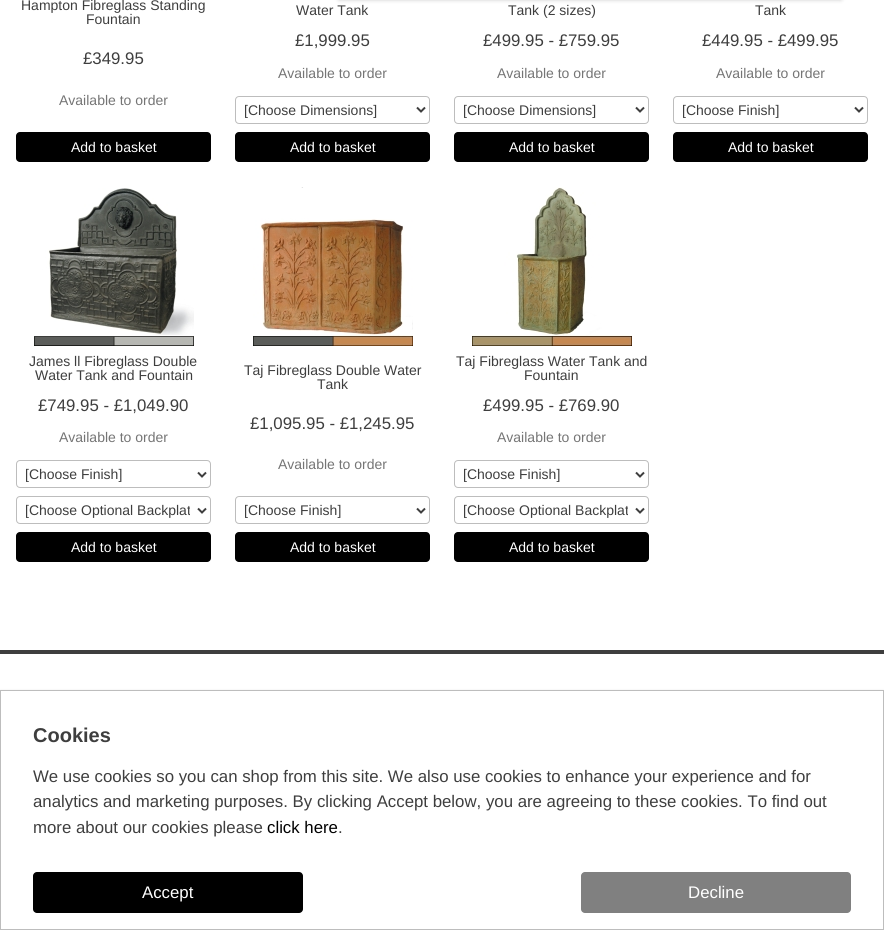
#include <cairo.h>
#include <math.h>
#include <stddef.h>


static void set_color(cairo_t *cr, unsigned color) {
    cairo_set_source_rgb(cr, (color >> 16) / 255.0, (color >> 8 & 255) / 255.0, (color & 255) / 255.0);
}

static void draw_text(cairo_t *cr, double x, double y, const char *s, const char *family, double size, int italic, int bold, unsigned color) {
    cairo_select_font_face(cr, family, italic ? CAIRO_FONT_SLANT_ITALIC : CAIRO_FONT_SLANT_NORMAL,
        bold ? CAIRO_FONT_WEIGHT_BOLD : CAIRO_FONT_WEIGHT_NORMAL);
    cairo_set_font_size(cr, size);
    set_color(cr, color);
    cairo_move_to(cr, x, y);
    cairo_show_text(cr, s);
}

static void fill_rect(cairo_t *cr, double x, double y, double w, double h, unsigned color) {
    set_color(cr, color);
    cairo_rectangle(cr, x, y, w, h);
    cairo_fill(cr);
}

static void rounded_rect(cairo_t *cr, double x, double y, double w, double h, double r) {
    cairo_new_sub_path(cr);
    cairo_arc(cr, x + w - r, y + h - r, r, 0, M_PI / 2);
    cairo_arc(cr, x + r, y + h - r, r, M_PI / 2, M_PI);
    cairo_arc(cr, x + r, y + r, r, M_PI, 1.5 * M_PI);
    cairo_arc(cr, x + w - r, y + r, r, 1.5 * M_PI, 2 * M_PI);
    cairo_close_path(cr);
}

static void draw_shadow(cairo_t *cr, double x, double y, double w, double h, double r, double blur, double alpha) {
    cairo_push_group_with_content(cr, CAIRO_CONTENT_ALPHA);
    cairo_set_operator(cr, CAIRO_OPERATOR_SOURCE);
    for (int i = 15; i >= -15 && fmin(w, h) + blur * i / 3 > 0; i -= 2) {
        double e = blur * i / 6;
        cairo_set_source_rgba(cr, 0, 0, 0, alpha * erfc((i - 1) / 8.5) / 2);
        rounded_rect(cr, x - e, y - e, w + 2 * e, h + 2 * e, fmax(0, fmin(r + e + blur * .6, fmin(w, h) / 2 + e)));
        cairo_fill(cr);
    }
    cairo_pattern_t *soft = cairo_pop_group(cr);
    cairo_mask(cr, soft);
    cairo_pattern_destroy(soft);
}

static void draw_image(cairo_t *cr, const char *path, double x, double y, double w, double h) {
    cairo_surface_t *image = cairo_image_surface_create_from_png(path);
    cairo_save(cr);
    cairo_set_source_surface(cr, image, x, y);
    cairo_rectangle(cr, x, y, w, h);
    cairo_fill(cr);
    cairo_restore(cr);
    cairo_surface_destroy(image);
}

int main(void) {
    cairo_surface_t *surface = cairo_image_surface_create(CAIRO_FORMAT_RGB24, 884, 930);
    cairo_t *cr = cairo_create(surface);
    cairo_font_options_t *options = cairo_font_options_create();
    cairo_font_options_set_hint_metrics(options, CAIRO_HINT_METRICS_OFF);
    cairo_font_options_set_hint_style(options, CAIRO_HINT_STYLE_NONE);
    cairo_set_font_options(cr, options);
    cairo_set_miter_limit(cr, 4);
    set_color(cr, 0xFFFFFF);
    cairo_paint(cr);
    draw_text(cr, 21, 10, "Hampton Fibreglass Standing", "Liberation Sans", 14, 0, 0, 0x3E3E3E);
    draw_text(cr, 86, 24, "Fountain", "Liberation Sans", 14, 0, 0, 0x3E3E3E);
    draw_text(cr, 83, 64, "£349.95", "Liberation Sans", 16.8, 0, 0, 0x3E3E3E);
    draw_text(cr, 59, 105, "Available to order", "Liberation Sans", 14, 0, 0, 0x757575);
    set_color(cr, 0x000000);
    rounded_rect(cr, 16, 132, 195, 30, 4);
    cairo_fill(cr);
    draw_text(cr, 71, 152, "Add to basket", "Liberation Sans", 14, 0, 0, 0xFFFFFF);
    draw_text(cr, 296, 15, "Water Tank", "Liberation Sans", 14, 0, 0, 0x3E3E3E);
    draw_text(cr, 295, 46, "£1,999.95", "Liberation Sans", 16.8, 0, 0, 0x3E3E3E);
    draw_text(cr, 278, 78, "Available to order", "Liberation Sans", 14, 0, 0, 0x757575);
    rounded_rect(cr, 235.5, 96.5, 194, 27, 3.5);
    set_color(cr, 0xBDBDBD);
    cairo_set_line_width(cr, 1);
    cairo_stroke(cr);
    cairo_new_path(cr);
    cairo_move_to(cr, 417, 107.5);
    cairo_line_to(cr, 421, 111.5);
    cairo_line_to(cr, 425, 107.5);
    set_color(cr, 0x3E3E3E);
    cairo_set_line_width(cr, 2);
    cairo_stroke(cr);
    draw_text(cr, 244, 115, "[Choose Dimensions]", "Liberation Sans", 14, 0, 0, 0x3E3E3E);
    set_color(cr, 0x000000);
    rounded_rect(cr, 235, 132, 195, 30, 4);
    cairo_fill(cr);
    draw_text(cr, 290, 152, "Add to basket", "Liberation Sans", 14, 0, 0, 0xFFFFFF);
    draw_text(cr, 508, 15, "Tank (2 sizes)", "Liberation Sans", 14, 0, 0, 0x3E3E3E);
    draw_text(cr, 483, 46, "£499.95 - £759.95", "Liberation Sans", 16.8, 0, 0, 0x3E3E3E);
    draw_text(cr, 497, 78, "Available to order", "Liberation Sans", 14, 0, 0, 0x757575);
    rounded_rect(cr, 454.5, 96.5, 194, 27, 3.5);
    set_color(cr, 0xBDBDBD);
    cairo_set_line_width(cr, 1);
    cairo_stroke(cr);
    cairo_new_path(cr);
    cairo_move_to(cr, 636, 107.5);
    cairo_line_to(cr, 640, 111.5);
    cairo_line_to(cr, 644, 107.5);
    set_color(cr, 0x3E3E3E);
    cairo_set_line_width(cr, 2);
    cairo_stroke(cr);
    draw_text(cr, 463, 115, "[Choose Dimensions]", "Liberation Sans", 14, 0, 0, 0x3E3E3E);
    set_color(cr, 0x000000);
    rounded_rect(cr, 454, 132, 195, 30, 4);
    cairo_fill(cr);
    draw_text(cr, 509, 152, "Add to basket", "Liberation Sans", 14, 0, 0, 0xFFFFFF);
    draw_text(cr, 755, 15, "Tank", "Liberation Sans", 14, 0, 0, 0x3E3E3E);
    draw_text(cr, 702, 46, "£449.95 - £499.95", "Liberation Sans", 16.8, 0, 0, 0x3E3E3E);
    draw_text(cr, 716, 78, "Available to order", "Liberation Sans", 14, 0, 0, 0x757575);
    rounded_rect(cr, 673.5, 96.5, 194, 27, 3.5);
    set_color(cr, 0xBDBDBD);
    cairo_set_line_width(cr, 1);
    cairo_stroke(cr);
    cairo_new_path(cr);
    cairo_move_to(cr, 855, 107.5);
    cairo_line_to(cr, 859, 111.5);
    cairo_line_to(cr, 863, 107.5);
    set_color(cr, 0x3E3E3E);
    cairo_set_line_width(cr, 2);
    cairo_stroke(cr);
    draw_text(cr, 682, 115, "[Choose Finish]", "Liberation Sans", 14, 0, 0, 0x3E3E3E);
    set_color(cr, 0x000000);
    rounded_rect(cr, 673, 132, 195, 30, 4);
    cairo_fill(cr);
    draw_text(cr, 728, 152, "Add to basket", "Liberation Sans", 14, 0, 0, 0xFFFFFF);
    draw_image(cr, "assets/img1.png", 34, 188, 160, 158);
    draw_text(cr, 29, 366, "James ll Fibreglass Double", "Liberation Sans", 14, 0, 0, 0x3E3E3E);
    draw_text(cr, 35, 380, "Water Tank and Fountain", "Liberation Sans", 14, 0, 0, 0x3E3E3E);
    draw_text(cr, 38, 411, "£749.95 - £1,049.90", "Liberation Sans", 16.8, 0, 0, 0x3E3E3E);
    draw_text(cr, 59, 442, "Available to order", "Liberation Sans", 14, 0, 0, 0x757575);
    rounded_rect(cr, 16.5, 460.5, 194, 27, 3.5);
    set_color(cr, 0xBDBDBD);
    cairo_set_line_width(cr, 1);
    cairo_stroke(cr);
    cairo_new_path(cr);
    cairo_move_to(cr, 198, 472.5);
    cairo_line_to(cr, 202, 476.5);
    cairo_line_to(cr, 206, 472.5);
    set_color(cr, 0x3E3E3E);
    cairo_set_line_width(cr, 2);
    cairo_stroke(cr);
    draw_text(cr, 25, 479, "[Choose Finish]", "Liberation Sans", 14, 0, 0, 0x3E3E3E);
    rounded_rect(cr, 16.5, 496.5, 194, 27, 3.5);
    set_color(cr, 0xBDBDBD);
    cairo_set_line_width(cr, 1);
    cairo_stroke(cr);
    cairo_new_path(cr);
    cairo_move_to(cr, 198, 508.5);
    cairo_line_to(cr, 202, 512.5);
    cairo_line_to(cr, 206, 508.5);
    set_color(cr, 0x3E3E3E);
    cairo_set_line_width(cr, 2);
    cairo_stroke(cr);
    cairo_save(cr);
    cairo_rectangle(cr, 25, 501, 165, 18);
    cairo_clip(cr);
    draw_text(cr, 25, 515, "[Choose Optional Backplat", "Liberation Sans", 14, 0, 0, 0x3E3E3E);
    cairo_restore(cr);
    set_color(cr, 0x000000);
    rounded_rect(cr, 16, 532, 195, 30, 4);
    cairo_fill(cr);
    draw_text(cr, 71, 552, "Add to basket", "Liberation Sans", 14, 0, 0, 0xFFFFFF);
    draw_image(cr, "assets/img2.png", 253, 187, 160, 159);
    draw_text(cr, 244, 375, "Taj Fibreglass Double Water", "Liberation Sans", 14, 0, 0, 0x3E3E3E);
    draw_text(cr, 317, 389, "Tank", "Liberation Sans", 14, 0, 0, 0x3E3E3E);
    draw_text(cr, 250, 429, "£1,095.95 - £1,245.95", "Liberation Sans", 16.8, 0, 0, 0x3E3E3E);
    draw_text(cr, 278, 469, "Available to order", "Liberation Sans", 14, 0, 0, 0x757575);
    rounded_rect(cr, 235.5, 496.5, 194, 27, 3.5);
    set_color(cr, 0xBDBDBD);
    cairo_set_line_width(cr, 1);
    cairo_stroke(cr);
    cairo_new_path(cr);
    cairo_move_to(cr, 417, 508.5);
    cairo_line_to(cr, 421, 512.5);
    cairo_line_to(cr, 425, 508.5);
    set_color(cr, 0x3E3E3E);
    cairo_set_line_width(cr, 2);
    cairo_stroke(cr);
    draw_text(cr, 244, 515, "[Choose Finish]", "Liberation Sans", 14, 0, 0, 0x3E3E3E);
    set_color(cr, 0x000000);
    rounded_rect(cr, 235, 532, 195, 30, 4);
    cairo_fill(cr);
    draw_text(cr, 290, 552, "Add to basket", "Liberation Sans", 14, 0, 0, 0xFFFFFF);
    draw_image(cr, "assets/img3.png", 472, 187, 160, 159);
    draw_text(cr, 456, 366, "Taj Fibreglass Water Tank and", "Liberation Sans", 14, 0, 0, 0x3E3E3E);
    draw_text(cr, 524, 380, "Fountain", "Liberation Sans", 14, 0, 0, 0x3E3E3E);
    draw_text(cr, 483, 411, "£499.95 - £769.90", "Liberation Sans", 16.8, 0, 0, 0x3E3E3E);
    draw_text(cr, 497, 442, "Available to order", "Liberation Sans", 14, 0, 0, 0x757575);
    rounded_rect(cr, 454.5, 460.5, 194, 27, 3.5);
    set_color(cr, 0xBDBDBD);
    cairo_set_line_width(cr, 1);
    cairo_stroke(cr);
    cairo_new_path(cr);
    cairo_move_to(cr, 636, 472.5);
    cairo_line_to(cr, 640, 476.5);
    cairo_line_to(cr, 644, 472.5);
    set_color(cr, 0x3E3E3E);
    cairo_set_line_width(cr, 2);
    cairo_stroke(cr);
    draw_text(cr, 463, 479, "[Choose Finish]", "Liberation Sans", 14, 0, 0, 0x3E3E3E);
    rounded_rect(cr, 454.5, 496.5, 194, 27, 3.5);
    set_color(cr, 0xBDBDBD);
    cairo_set_line_width(cr, 1);
    cairo_stroke(cr);
    cairo_new_path(cr);
    cairo_move_to(cr, 636, 508.5);
    cairo_line_to(cr, 640, 512.5);
    cairo_line_to(cr, 644, 508.5);
    set_color(cr, 0x3E3E3E);
    cairo_set_line_width(cr, 2);
    cairo_stroke(cr);
    cairo_save(cr);
    cairo_rectangle(cr, 463, 501, 165, 18);
    cairo_clip(cr);
    draw_text(cr, 463, 515, "[Choose Optional Backplat", "Liberation Sans", 14, 0, 0, 0x3E3E3E);
    cairo_restore(cr);
    set_color(cr, 0x000000);
    rounded_rect(cr, 454, 532, 195, 30, 4);
    cairo_fill(cr);
    draw_text(cr, 509, 552, "Add to basket", "Liberation Sans", 14, 0, 0, 0xFFFFFF);
    set_color(cr, 0x000000);
    draw_shadow(cr, 339, -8, 502, 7, 0, 2.5, 0.3);
    fill_rect(cr, 0, 650, 884, 4, 0x3E3E3E);
    set_color(cr, 0x000000);
    draw_shadow(cr, 0, 692, 884, 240, 0, 2, 0.2);
    set_color(cr, 0xFFFFFF);
    cairo_rectangle(cr, 0.5, 690.5, 883, 239);
    cairo_fill_preserve(cr);
    set_color(cr, 0xBDBDBD);
    cairo_set_line_width(cr, 1);
    cairo_stroke(cr);
    draw_text(cr, 33, 742, "Cookies", "Liberation Sans", 20, 0, 1, 0x3E3E3E);
    draw_text(cr, 33, 782, "We use cookies so you can shop from this site. We also use cookies to enhance your experience and for", "Liberation Sans", 16.8, 0, 0, 0x3E3E3E);
    draw_text(cr, 33, 807, "analytics and marketing purposes. By clicking Accept below, you are agreeing to these cookies. To find out", "Liberation Sans", 16.8, 0, 0, 0x3E3E3E);
    draw_text(cr, 33, 833, "more about our cookies please", "Liberation Sans", 16.8, 0, 0, 0x3E3E3E);
    draw_text(cr, 267, 833, "click here", "Liberation Sans", 16.8, 0, 0, 0x000000);
    draw_text(cr, 338, 833, ".", "Liberation Sans", 16.8, 0, 0, 0x3E3E3E);
    set_color(cr, 0x000000);
    rounded_rect(cr, 33, 872, 270, 41, 4);
    cairo_fill(cr);
    draw_text(cr, 142, 898, "Accept", "Liberation Sans", 16.8, 0, 0, 0xFFFFFF);
    set_color(cr, 0x808080);
    rounded_rect(cr, 581, 872, 270, 41, 4);
    cairo_fill(cr);
    draw_text(cr, 688, 898, "Decline", "Liberation Sans", 16.8, 0, 0, 0xFFFFFF);
    cairo_surface_write_to_png(surface, "output.png");
    cairo_font_options_destroy(options);
    cairo_destroy(cr);
    cairo_surface_destroy(surface);
    return 0;
}
